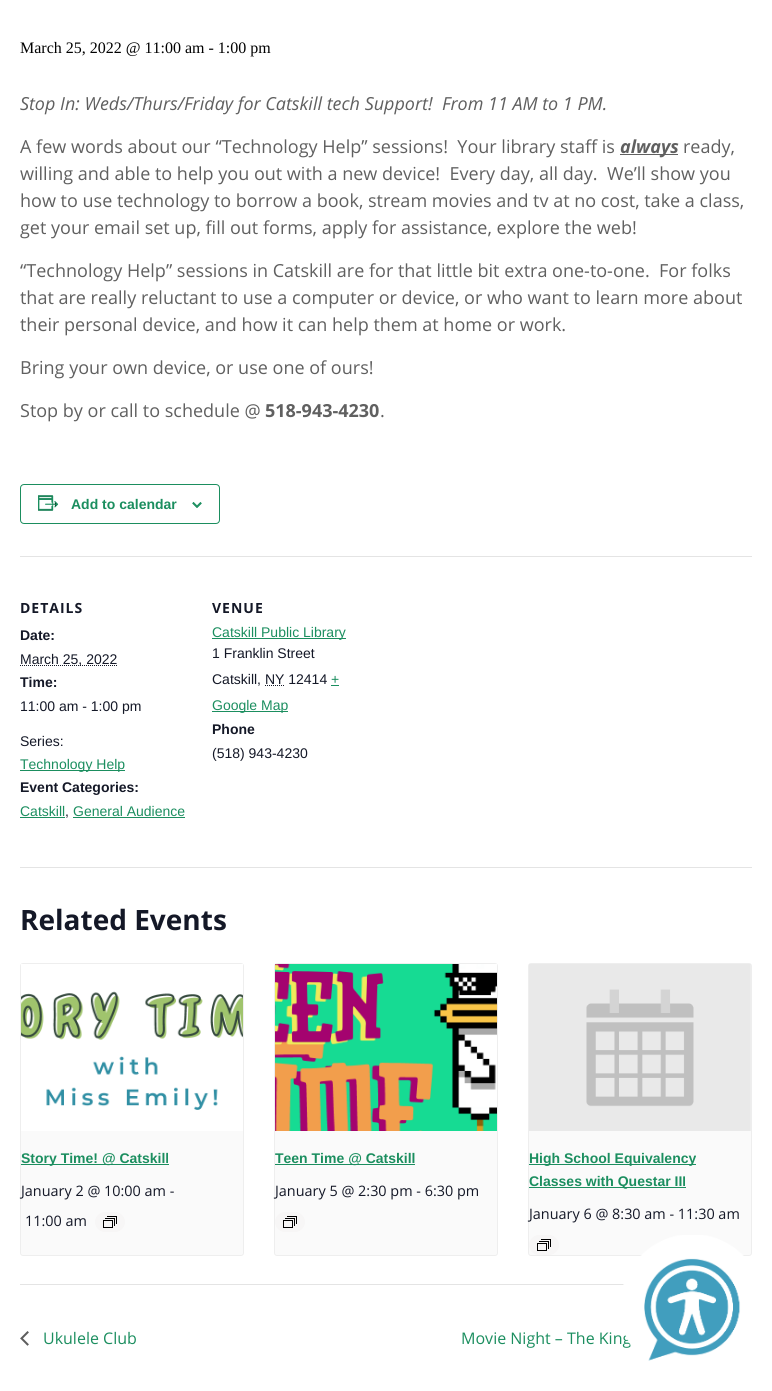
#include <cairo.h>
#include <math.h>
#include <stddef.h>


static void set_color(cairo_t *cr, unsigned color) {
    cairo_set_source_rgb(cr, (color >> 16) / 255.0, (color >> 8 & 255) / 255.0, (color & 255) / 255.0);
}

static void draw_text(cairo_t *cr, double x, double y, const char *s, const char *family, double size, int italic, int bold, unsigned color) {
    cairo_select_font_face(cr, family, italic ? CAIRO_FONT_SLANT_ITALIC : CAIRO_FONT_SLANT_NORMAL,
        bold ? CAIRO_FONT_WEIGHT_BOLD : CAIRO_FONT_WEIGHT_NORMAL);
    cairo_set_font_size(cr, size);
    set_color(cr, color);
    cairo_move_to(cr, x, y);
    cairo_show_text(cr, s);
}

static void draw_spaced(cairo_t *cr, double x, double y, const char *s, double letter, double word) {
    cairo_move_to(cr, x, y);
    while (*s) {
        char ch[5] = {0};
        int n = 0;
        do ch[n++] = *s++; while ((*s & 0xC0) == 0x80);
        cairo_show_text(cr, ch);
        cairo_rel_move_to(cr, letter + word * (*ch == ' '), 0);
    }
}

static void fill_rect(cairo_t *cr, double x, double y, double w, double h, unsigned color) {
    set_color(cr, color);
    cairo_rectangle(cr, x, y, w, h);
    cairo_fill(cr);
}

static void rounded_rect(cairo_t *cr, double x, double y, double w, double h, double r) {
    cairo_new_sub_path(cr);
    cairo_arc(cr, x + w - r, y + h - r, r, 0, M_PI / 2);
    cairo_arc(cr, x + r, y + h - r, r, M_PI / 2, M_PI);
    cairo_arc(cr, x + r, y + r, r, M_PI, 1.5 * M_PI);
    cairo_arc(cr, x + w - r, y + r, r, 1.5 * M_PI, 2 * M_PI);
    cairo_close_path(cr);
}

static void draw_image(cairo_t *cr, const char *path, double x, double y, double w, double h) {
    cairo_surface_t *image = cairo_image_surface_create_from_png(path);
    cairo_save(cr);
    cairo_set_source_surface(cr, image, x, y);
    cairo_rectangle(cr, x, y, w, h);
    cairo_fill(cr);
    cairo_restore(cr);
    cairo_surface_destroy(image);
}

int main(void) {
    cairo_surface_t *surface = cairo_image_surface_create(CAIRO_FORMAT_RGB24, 772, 1391);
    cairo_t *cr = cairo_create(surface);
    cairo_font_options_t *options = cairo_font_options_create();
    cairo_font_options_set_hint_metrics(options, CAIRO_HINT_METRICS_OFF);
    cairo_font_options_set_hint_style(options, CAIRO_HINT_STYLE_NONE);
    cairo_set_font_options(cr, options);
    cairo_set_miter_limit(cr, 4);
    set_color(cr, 0xFFFFFF);
    cairo_paint(cr);
    draw_text(cr, 20, 53, "March 25, 2022 @ 11:00 am - 1:00 pm", "Liberation Serif", 16, 0, 0, 0x000000);
    draw_text(cr, 20, 110, "Stop In: Weds/Thurs/Friday for Catskill tech Support!  From 11 AM to 1 PM.", "Open Sans", 18, 1, 0, 0x606060);
    draw_text(cr, 20, 153, "A few words about our “Technology Help” sessions!  Your library staff is", "Open Sans", 18, 0, 0, 0x606060);
    fill_rect(cr, 620, 154, 58, 1, 0x606060);
    draw_text(cr, 620, 153, "always", "Open Sans", 18, 1, 1, 0x606060);
    draw_text(cr, 683, 153, "ready,", "Open Sans", 18, 0, 0, 0x606060);
    draw_text(cr, 20, 180, "willing and able to help you out with a new device!  Every day, all day.  We’ll show you", "Open Sans", 18, 0, 0, 0x606060);
    draw_text(cr, 20, 207, "how to use technology to borrow a book, stream movies and tv at no cost, take a class,", "Open Sans", 18, 0, 0, 0x606060);
    draw_text(cr, 20, 234, "get your email set up, fill out forms, apply for assistance, explore the web!", "Open Sans", 18, 0, 0, 0x606060);
    draw_text(cr, 20, 277, "“Technology Help” sessions in Catskill are for that little bit extra one-to-one.  For folks", "Open Sans", 18, 0, 0, 0x606060);
    draw_text(cr, 20, 304, "that are really reluctant to use a computer or device, or who want to learn more about", "Open Sans", 18, 0, 0, 0x606060);
    draw_text(cr, 20, 331, "their personal device, and how it can help them at home or work.", "Open Sans", 18, 0, 0, 0x606060);
    draw_text(cr, 20, 374, "Bring your own device, or use one of ours!", "Open Sans", 18, 0, 0, 0x606060);
    draw_text(cr, 20, 417, "Stop by or call to schedule @", "Open Sans", 18, 0, 0, 0x606060);
    draw_text(cr, 265, 417, "518-943-4230", "Open Sans", 18, 0, 1, 0x606060);
    draw_text(cr, 380, 417, ".", "Open Sans", 18, 0, 0, 0x606060);
    rounded_rect(cr, 20.5, 484.5, 199, 39, 3.5);
    set_color(cr, 0x1B8E5F);
    cairo_set_line_width(cr, 1);
    cairo_stroke(cr);
    draw_image(cr, "assets/img1.png", 38, 495, 21, 16);
    draw_text(cr, 71, 509, "Add to calendar", "Liberation Sans", 14, 0, 1, 0x1B8E5F);
    draw_image(cr, "assets/img2.png", 192, 502, 10, 6);
    fill_rect(cr, 20, 556, 732, 1, 0xE4E4E4);
    cairo_select_font_face(cr, "Open Sans", CAIRO_FONT_SLANT_NORMAL, CAIRO_FONT_WEIGHT_BOLD);
    set_color(cr, 0x141827);
    draw_spaced(cr, 20, 613, "DETAILS", 1, 0);
    draw_text(cr, 20, 640, "Date:", "Liberation Sans", 14, 0, 1, 0x141827);
    cairo_new_path(cr);
    cairo_move_to(cr, 20, 665.5);
    cairo_line_to(cr, 117.5, 665.5);
    cairo_set_dash(cr, (double[]){1, 1}, 2, 0);
    cairo_stroke(cr);
    draw_text(cr, 20, 664, "March 25, 2022", "Liberation Sans", 14, 0, 0, 0x141827);
    draw_text(cr, 20, 687, "Time:", "Liberation Sans", 14, 0, 1, 0x141827);
    draw_text(cr, 20, 711, "11:00 am - 1:00 pm", "Liberation Sans", 14, 0, 0, 0x141827);
    draw_text(cr, 20, 746, "Series:", "Liberation Sans", 14, 0, 0, 0x141827);
    fill_rect(cr, 20, 770, 105, 1, 0x1B8E5F);
    draw_text(cr, 20, 769, "Technology Help", "Liberation Sans", 14, 0, 0, 0x1B8E5F);
    draw_text(cr, 20, 792, "Event Categories:", "Liberation Sans", 14, 0, 1, 0x141827);
    draw_text(cr, 20, 816, "Catskill", "Liberation Sans", 14, 0, 0, 0x1B8E5F);
    fill_rect(cr, 20, 817, 45, 1, 0x1B8E5F);
    draw_text(cr, 65, 816, ",", "Liberation Sans", 14, 0, 0, 0x141827);
    draw_text(cr, 73, 816, "General Audience", "Liberation Sans", 14, 0, 0, 0x1B8E5F);
    fill_rect(cr, 73, 817, 112, 1, 0x1B8E5F);
    cairo_select_font_face(cr, "Open Sans", CAIRO_FONT_SLANT_NORMAL, CAIRO_FONT_WEIGHT_BOLD);
    set_color(cr, 0x141827);
    draw_spaced(cr, 212, 613, "VENUE", 1, 0);
    fill_rect(cr, 212, 638, 134, 1, 0x1B8E5F);
    draw_text(cr, 212, 637, "Catskill Public Library", "Liberation Sans", 14, 0, 0, 0x1B8E5F);
    draw_text(cr, 212, 658, "1 Franklin Street", "Liberation Sans", 14, 0, 0, 0x141827);
    draw_text(cr, 212, 684, "Catskill, NY 12414", "Liberation Sans", 14, 0, 0, 0x141827);
    cairo_new_path(cr);
    cairo_move_to(cr, 265, 685.5);
    cairo_line_to(cr, 284.5, 685.5);
    cairo_stroke(cr);
    draw_text(cr, 331, 684, "+", "Liberation Sans", 14, 0, 0, 0x1B8E5F);
    fill_rect(cr, 331, 685, 8, 1, 0x1B8E5F);
    fill_rect(cr, 212, 711, 76, 1, 0x1B8E5F);
    draw_text(cr, 212, 710, "Google Map", "Liberation Sans", 14, 0, 0, 0x1B8E5F);
    draw_text(cr, 212, 734, "Phone", "Liberation Sans", 14, 0, 1, 0x141827);
    draw_text(cr, 212, 758, "(518) 943-4230", "Liberation Sans", 14, 0, 0, 0x141827);
    fill_rect(cr, 20, 867, 732, 1, 0xE4E4E4);
    draw_text(cr, 20, 930, "Related Events", "Open Sans", 28, 0, 1, 0x141827);
    set_color(cr, 0xFAFAFA);
    rounded_rect(cr, 20.5, 963.5, 223, 292, 2.5);
    cairo_fill_preserve(cr);
    set_color(cr, 0xEEEEEE);
    cairo_set_dash(cr, NULL, 0, 0);
    cairo_stroke(cr);
    draw_image(cr, "assets/img3.png", 21, 964, 222, 167);
    fill_rect(cr, 21, 1164, 148, 1, 0x1B8E5F);
    draw_text(cr, 21, 1163, "Story Time! @ Catskill", "Liberation Sans", 14, 0, 1, 0x1B8E5F);
    draw_text(cr, 21, 1196, "January 2 @ 10:00 am -", "Open Sans", 14.4, 0, 0, 0x141827);
    draw_text(cr, 25, 1226, "11:00 am", "Open Sans", 14.4, 0, 0, 0x141827);
    set_color(cr, 0xF7F6F6);
    rounded_rect(cr, 95, 1212, 30, 20, 10);
    cairo_fill(cr);
    draw_image(cr, "assets/img4.png", 103, 1216, 14, 12);
    set_color(cr, 0xFAFAFA);
    rounded_rect(cr, 274.5, 963.5, 223, 292, 2.5);
    cairo_fill_preserve(cr);
    set_color(cr, 0xEEEEEE);
    cairo_stroke(cr);
    draw_image(cr, "assets/img5.png", 275, 964, 222, 167);
    fill_rect(cr, 275, 1164, 140, 1, 0x1B8E5F);
    draw_text(cr, 275, 1163, "Teen Time @ Catskill", "Liberation Sans", 14, 0, 1, 0x1B8E5F);
    draw_text(cr, 275, 1196, "January 5 @ 2:30 pm - 6:30 pm", "Open Sans", 14.4, 0, 0, 0x141827);
    set_color(cr, 0xF7F6F6);
    rounded_rect(cr, 275, 1212, 30, 20, 10);
    cairo_fill(cr);
    draw_image(cr, "assets/img4.png", 283, 1216, 14, 12);
    set_color(cr, 0xFAFAFA);
    rounded_rect(cr, 528.5, 963.5, 223, 292, 2.5);
    cairo_fill_preserve(cr);
    set_color(cr, 0xEEEEEE);
    cairo_stroke(cr);
    draw_image(cr, "assets/img6.png", 529, 964, 222, 167);
    fill_rect(cr, 529, 1164, 167, 1, 0x1B8E5F);
    draw_text(cr, 529, 1163, "High School Equivalency", "Liberation Sans", 14, 0, 1, 0x1B8E5F);
    fill_rect(cr, 529, 1187, 157, 1, 0x1B8E5F);
    draw_text(cr, 529, 1186, "Classes with Questar III", "Liberation Sans", 14, 0, 1, 0x1B8E5F);
    draw_text(cr, 529, 1219, "January 6 @ 8:30 am - 11:30 am", "Open Sans", 14.4, 0, 0, 0x141827);
    set_color(cr, 0xF7F6F6);
    rounded_rect(cr, 529, 1235, 30, 20, 10);
    cairo_fill(cr);
    draw_image(cr, "assets/img4.png", 537, 1239, 14, 12);
    fill_rect(cr, 20, 1284, 605, 1, 0xE4E4E4);
    draw_image(cr, "assets/img7.png", 20, 1331, 9, 15);
    draw_text(cr, 43, 1344, "Ukulele Club", "Open Sans", 16, 0, 0, 0x1B8E5F);
    draw_text(cr, 461, 1344, "Movie Night – The King", "Open Sans", 16, 0, 0, 0x1B8E5F);
    draw_image(cr, "assets/img8.png", 623, 1235, 129, 126);
    cairo_surface_write_to_png(surface, "output.png");
    cairo_font_options_destroy(options);
    cairo_destroy(cr);
    cairo_surface_destroy(surface);
    return 0;
}
